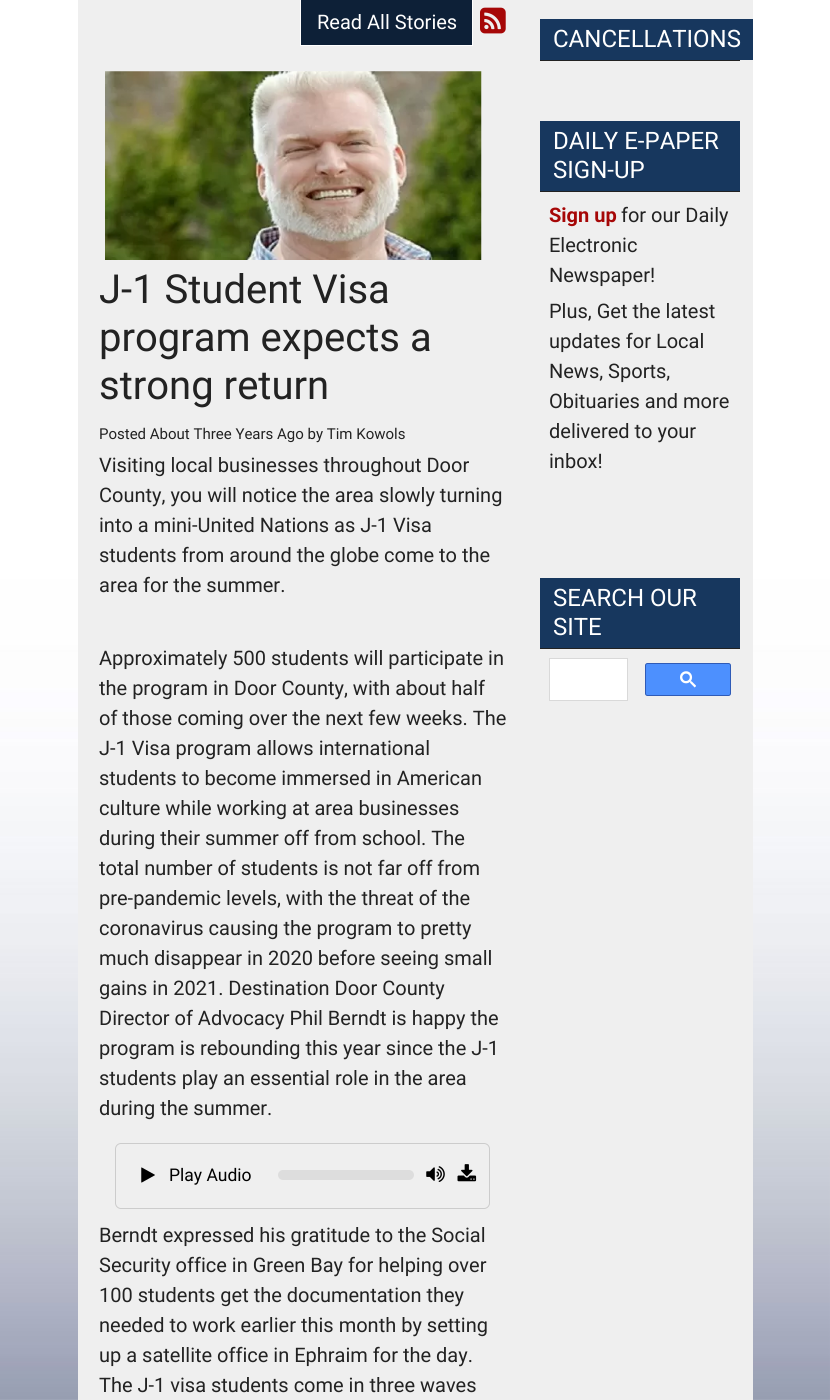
#include <cairo.h>
#include <math.h>
#include <stddef.h>


static void set_color(cairo_t *cr, unsigned color) {
    cairo_set_source_rgb(cr, (color >> 16) / 255.0, (color >> 8 & 255) / 255.0, (color & 255) / 255.0);
}

static void draw_text(cairo_t *cr, double x, double y, const char *s, const char *family, double size, int italic, int bold, unsigned color) {
    cairo_select_font_face(cr, family, italic ? CAIRO_FONT_SLANT_ITALIC : CAIRO_FONT_SLANT_NORMAL,
        bold ? CAIRO_FONT_WEIGHT_BOLD : CAIRO_FONT_WEIGHT_NORMAL);
    cairo_set_font_size(cr, size);
    set_color(cr, color);
    cairo_move_to(cr, x, y);
    cairo_show_text(cr, s);
}

static void fill_rect(cairo_t *cr, double x, double y, double w, double h, unsigned color) {
    set_color(cr, color);
    cairo_rectangle(cr, x, y, w, h);
    cairo_fill(cr);
}

static void rounded_rect(cairo_t *cr, double x, double y, double w, double h, double r) {
    cairo_new_sub_path(cr);
    cairo_arc(cr, x + w - r, y + h - r, r, 0, M_PI / 2);
    cairo_arc(cr, x + r, y + h - r, r, M_PI / 2, M_PI);
    cairo_arc(cr, x + r, y + r, r, M_PI, 1.5 * M_PI);
    cairo_arc(cr, x + w - r, y + r, r, 1.5 * M_PI, 2 * M_PI);
    cairo_close_path(cr);
}

static void draw_image(cairo_t *cr, const char *path, double x, double y, double w, double h) {
    cairo_surface_t *image = cairo_image_surface_create_from_png(path);
    cairo_save(cr);
    cairo_set_source_surface(cr, image, x, y);
    cairo_rectangle(cr, x, y, w, h);
    cairo_fill(cr);
    cairo_restore(cr);
    cairo_surface_destroy(image);
}

int main(void) {
    cairo_surface_t *surface = cairo_image_surface_create(CAIRO_FORMAT_RGB24, 830, 1400);
    cairo_t *cr = cairo_create(surface);
    cairo_font_options_t *options = cairo_font_options_create();
    cairo_font_options_set_hint_metrics(options, CAIRO_HINT_METRICS_OFF);
    cairo_font_options_set_hint_style(options, CAIRO_HINT_STYLE_NONE);
    cairo_set_font_options(cr, options);
    cairo_set_miter_limit(cr, 4);
    set_color(cr, 0xFFFFFF);
    cairo_paint(cr);
    draw_image(cr, "assets/img1.png", 0, 0, 830, 1400);
    fill_rect(cr, 78, 0, 675, 1400, 0xEFEFEF);
    set_color(cr, 0x0D2037);
    cairo_rectangle(cr, 300.5, -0.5, 172, 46);
    cairo_fill_preserve(cr);
    set_color(cr, 0xFFFFFF);
    cairo_set_line_width(cr, 1);
    cairo_stroke(cr);
    draw_text(cr, 317, 29, "Read All Stories", "Roboto", 20, 0, 0, 0xFFFFFF);
    draw_image(cr, "assets/img2.png", 480, 7, 26, 27);
    draw_image(cr, "assets/img3.png", 105, 71, 377, 189);
    draw_text(cr, 99, 303, "J-1 Student Visa", "Roboto", 40, 0, 0, 0x222222);
    draw_text(cr, 99, 351, "program expects a", "Roboto", 40, 0, 0, 0x222222);
    draw_text(cr, 99, 399, "strong return", "Roboto", 40, 0, 0, 0x222222);
    draw_text(cr, 99, 439, "Posted About Three Years Ago by Tim Kowols", "Roboto", 15, 0, 0, 0x222222);
    draw_text(cr, 99, 472, "Visiting local businesses throughout Door", "Roboto", 20, 0, 0, 0x222222);
    draw_text(cr, 99, 502, "County, you will notice the area slowly turning", "Roboto", 20, 0, 0, 0x222222);
    draw_text(cr, 99, 532, "into a mini-United Nations as J-1 Visa", "Roboto", 20, 0, 0, 0x222222);
    draw_text(cr, 99, 562, "students from around the globe come to the", "Roboto", 20, 0, 0, 0x222222);
    draw_text(cr, 99, 592, "area for the summer.", "Roboto", 20, 0, 0, 0x222222);
    draw_text(cr, 99, 665, "Approximately 500 students will participate in", "Roboto", 20, 0, 0, 0x222222);
    draw_text(cr, 99, 695, "the program in Door County, with about half", "Roboto", 20, 0, 0, 0x222222);
    draw_text(cr, 99, 725, "of those coming over the next few weeks. The", "Roboto", 20, 0, 0, 0x222222);
    draw_text(cr, 99, 755, "J-1 Visa program allows international", "Roboto", 20, 0, 0, 0x222222);
    draw_text(cr, 99, 785, "students to become immersed in American", "Roboto", 20, 0, 0, 0x222222);
    draw_text(cr, 99, 815, "culture while working at area businesses", "Roboto", 20, 0, 0, 0x222222);
    draw_text(cr, 99, 845, "during their summer off from school. The", "Roboto", 20, 0, 0, 0x222222);
    draw_text(cr, 99, 875, "total number of students is not far off from", "Roboto", 20, 0, 0, 0x222222);
    draw_text(cr, 99, 905, "pre-pandemic levels, with the threat of the", "Roboto", 20, 0, 0, 0x222222);
    draw_text(cr, 99, 935, "coronavirus causing the program to pretty", "Roboto", 20, 0, 0, 0x222222);
    draw_text(cr, 99, 965, "much disappear in 2020 before seeing small", "Roboto", 20, 0, 0, 0x222222);
    draw_text(cr, 99, 995, "gains in 2021. Destination Door County", "Roboto", 20, 0, 0, 0x222222);
    draw_text(cr, 99, 1025, "Director of Advocacy Phil Berndt is happy the", "Roboto", 20, 0, 0, 0x222222);
    draw_text(cr, 99, 1055, "program is rebounding this year since the J-1", "Roboto", 20, 0, 0, 0x222222);
    draw_text(cr, 99, 1085, "students play an essential role in the area", "Roboto", 20, 0, 0, 0x222222);
    draw_text(cr, 99, 1115, "during the summer.", "Roboto", 20, 0, 0, 0x222222);
    rounded_rect(cr, 115.5, 1143.5, 374, 65, 5.5);
    set_color(cr, 0xCCCCCC);
    cairo_stroke(cr);
    draw_image(cr, "assets/img4.png", 141, 1167, 14, 16);
    draw_text(cr, 169, 1181, "Play Audio", "Roboto", 17.5, 0, 0, 0x000000);
    set_color(cr, 0xDDDDDD);
    rounded_rect(cr, 278, 1170, 136, 10, 5);
    cairo_fill(cr);
    draw_image(cr, "assets/img5.png", 426, 1166, 19, 16);
    draw_image(cr, "assets/img6.png", 457, 1164, 20, 18);
    draw_text(cr, 99, 1242, "Berndt expressed his gratitude to the Social", "Roboto", 20, 0, 0, 0x222222);
    draw_text(cr, 99, 1272, "Security office in Green Bay for helping over", "Roboto", 20, 0, 0, 0x222222);
    draw_text(cr, 99, 1302, "100 students get the documentation they", "Roboto", 20, 0, 0, 0x222222);
    draw_text(cr, 99, 1332, "needed to work earlier this month by setting", "Roboto", 20, 0, 0, 0x222222);
    draw_text(cr, 99, 1362, "up a satellite office in Ephraim for the day.", "Roboto", 20, 0, 0, 0x222222);
    draw_text(cr, 99, 1392, "The J-1 visa students come in three waves", "Roboto", 20, 0, 0, 0x222222);
    fill_rect(cr, 540, 60, 200, 1, 0x222222);
    fill_rect(cr, 540, 19, 213, 41, 0x17375E);
    draw_text(cr, 553, 47, "CANCELLATIONS", "Roboto", 24, 0, 0, 0xFFFFFF);
    fill_rect(cr, 540, 191, 200, 1, 0x222222);
    fill_rect(cr, 540, 121, 200, 70, 0x17375E);
    draw_text(cr, 553, 149, "DAILY E-PAPER", "Roboto", 24, 0, 0, 0xFFFFFF);
    draw_text(cr, 553, 178, "SIGN-UP", "Roboto", 24, 0, 0, 0xFFFFFF);
    draw_text(cr, 549, 222, "Sign up", "Roboto", 20, 0, 1, 0xA60707);
    draw_text(cr, 621, 222, "for our Daily", "Roboto", 20, 0, 0, 0x222222);
    draw_text(cr, 549, 252, "Electronic", "Roboto", 20, 0, 0, 0x222222);
    draw_text(cr, 549, 282, "Newspaper!", "Roboto", 20, 0, 0, 0x222222);
    draw_text(cr, 549, 318, "Plus, Get the latest", "Roboto", 20, 0, 0, 0x222222);
    draw_text(cr, 549, 348, "updates for Local", "Roboto", 20, 0, 0, 0x222222);
    draw_text(cr, 549, 378, "News, Sports,", "Roboto", 20, 0, 0, 0x222222);
    draw_text(cr, 549, 408, "Obituaries and more", "Roboto", 20, 0, 0, 0x222222);
    draw_text(cr, 549, 438, "delivered to your", "Roboto", 20, 0, 0, 0x222222);
    draw_text(cr, 549, 468, "inbox!", "Roboto", 20, 0, 0, 0x222222);
    fill_rect(cr, 540, 648, 200, 1, 0x222222);
    fill_rect(cr, 540, 578, 200, 70, 0x17375E);
    draw_text(cr, 553, 606, "SEARCH OUR", "Roboto", 24, 0, 0, 0xFFFFFF);
    draw_text(cr, 553, 635, "SITE", "Roboto", 24, 0, 0, 0xFFFFFF);
    cairo_rectangle(cr, 549.5, 658.5, 78, 42);
    cairo_fill_preserve(cr);
    set_color(cr, 0xD9D9D9);
    cairo_stroke(cr);
    set_color(cr, 0x4D90FE);
    rounded_rect(cr, 645.5, 663.5, 85, 32, 2);
    cairo_fill_preserve(cr);
    set_color(cr, 0x2F5BB7);
    cairo_stroke(cr);
    draw_image(cr, "assets/img7.png", 680, 671, 16, 17);
    cairo_surface_write_to_png(surface, "output.png");
    cairo_font_options_destroy(options);
    cairo_destroy(cr);
    cairo_surface_destroy(surface);
    return 0;
}
